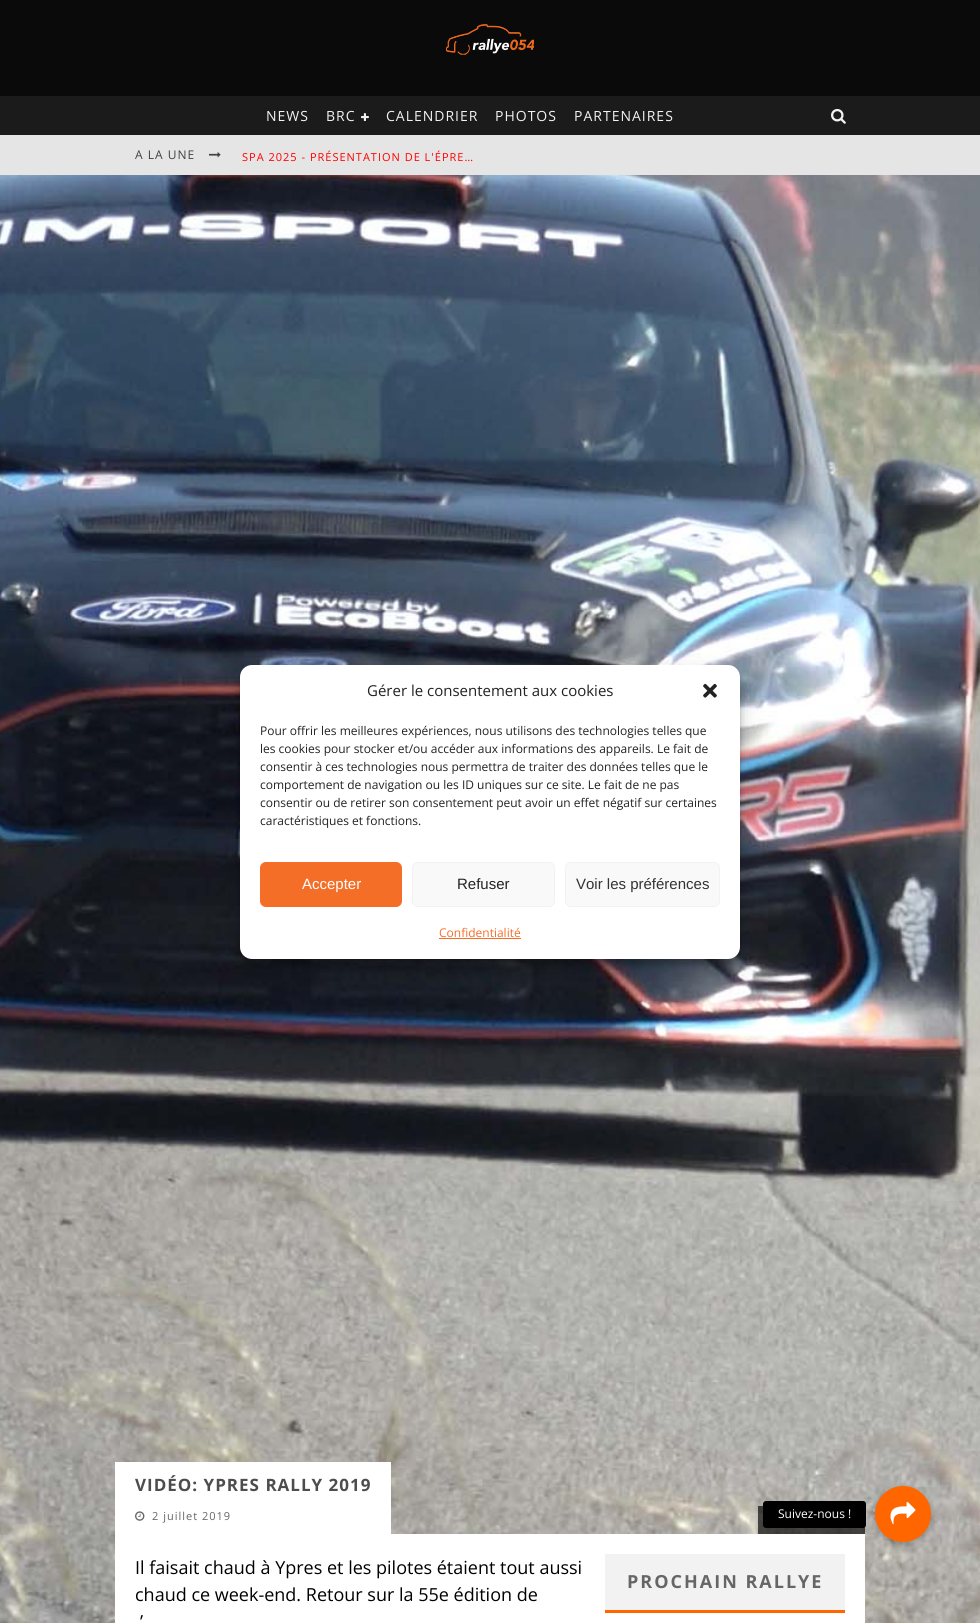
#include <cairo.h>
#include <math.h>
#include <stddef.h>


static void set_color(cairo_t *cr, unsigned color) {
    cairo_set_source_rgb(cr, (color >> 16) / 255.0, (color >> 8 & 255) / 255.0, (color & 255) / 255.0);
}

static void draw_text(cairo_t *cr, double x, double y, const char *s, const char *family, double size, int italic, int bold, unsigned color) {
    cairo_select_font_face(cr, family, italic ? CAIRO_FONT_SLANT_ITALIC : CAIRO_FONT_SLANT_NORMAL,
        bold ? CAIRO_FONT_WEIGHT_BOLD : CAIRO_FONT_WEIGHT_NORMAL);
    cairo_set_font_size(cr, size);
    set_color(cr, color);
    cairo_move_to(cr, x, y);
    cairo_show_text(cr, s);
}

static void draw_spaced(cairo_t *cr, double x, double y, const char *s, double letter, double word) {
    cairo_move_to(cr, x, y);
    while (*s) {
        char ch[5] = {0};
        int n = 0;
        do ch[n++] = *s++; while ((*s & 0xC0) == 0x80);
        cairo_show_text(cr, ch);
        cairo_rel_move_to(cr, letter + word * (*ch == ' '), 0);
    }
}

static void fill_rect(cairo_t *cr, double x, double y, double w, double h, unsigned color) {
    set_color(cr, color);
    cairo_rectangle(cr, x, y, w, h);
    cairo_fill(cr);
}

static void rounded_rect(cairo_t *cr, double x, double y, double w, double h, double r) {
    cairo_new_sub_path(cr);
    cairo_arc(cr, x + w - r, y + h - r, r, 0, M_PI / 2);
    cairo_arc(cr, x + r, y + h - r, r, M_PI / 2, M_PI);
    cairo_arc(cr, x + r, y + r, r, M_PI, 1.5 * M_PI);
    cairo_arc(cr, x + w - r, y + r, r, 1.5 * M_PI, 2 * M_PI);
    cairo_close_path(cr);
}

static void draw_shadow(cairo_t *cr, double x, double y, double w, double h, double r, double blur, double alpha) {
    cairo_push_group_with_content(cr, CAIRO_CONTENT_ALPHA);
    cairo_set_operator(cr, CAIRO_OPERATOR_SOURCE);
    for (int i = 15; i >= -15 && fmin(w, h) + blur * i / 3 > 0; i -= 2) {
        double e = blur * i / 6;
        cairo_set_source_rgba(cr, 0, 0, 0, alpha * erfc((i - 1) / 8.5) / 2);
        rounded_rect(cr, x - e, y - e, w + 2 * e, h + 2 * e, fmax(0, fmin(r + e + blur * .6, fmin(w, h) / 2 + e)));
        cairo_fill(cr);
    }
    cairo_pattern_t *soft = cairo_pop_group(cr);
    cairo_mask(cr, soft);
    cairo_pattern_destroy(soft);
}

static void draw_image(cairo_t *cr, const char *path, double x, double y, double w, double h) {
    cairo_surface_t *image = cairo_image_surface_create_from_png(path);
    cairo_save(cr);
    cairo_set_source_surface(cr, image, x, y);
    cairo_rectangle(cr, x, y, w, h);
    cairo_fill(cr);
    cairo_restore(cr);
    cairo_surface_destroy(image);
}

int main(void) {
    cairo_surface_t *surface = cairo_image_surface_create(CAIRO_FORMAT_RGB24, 980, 1623);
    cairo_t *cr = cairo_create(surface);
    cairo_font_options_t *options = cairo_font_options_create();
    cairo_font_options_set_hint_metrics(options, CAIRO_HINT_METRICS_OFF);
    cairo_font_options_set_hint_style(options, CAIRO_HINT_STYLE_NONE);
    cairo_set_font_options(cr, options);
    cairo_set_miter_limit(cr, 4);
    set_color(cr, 0xFFFFFF);
    cairo_paint(cr);
    fill_rect(cr, 0, 0, 980, 96, 0x0A0A0A);
    draw_image(cr, "assets/img1.png", 446, 24, 88, 31);
    fill_rect(cr, 0, 96, 980, 39, 0x1B1B1B);
    cairo_select_font_face(cr, "Open Sans", CAIRO_FONT_SLANT_NORMAL, CAIRO_FONT_WEIGHT_NORMAL);
    cairo_set_font_size(cr, 14);
    set_color(cr, 0xF2F2F2);
    draw_spaced(cr, 266, 121, "NEWS", 1, 0);
    draw_spaced(cr, 326, 121, "BRC", 1, 0);
    draw_image(cr, "assets/img2.png", 361, 113, 8, 8);
    draw_spaced(cr, 386, 121, "CALENDRIER", 1, 0);
    draw_spaced(cr, 495, 121, "PHOTOS", 1, 0);
    draw_spaced(cr, 574, 121, "PARTENAIRES", 1, 0);
    draw_image(cr, "assets/img3.png", 831, 108, 15, 16);
    fill_rect(cr, 0, 135, 980, 40, 0xE5E5E5);
    cairo_set_font_size(cr, 12);
    set_color(cr, 0x424242);
    draw_spaced(cr, 135, 159, "A LA UNE", 1, 0);
    draw_image(cr, "assets/img4.png", 209, 152, 12, 6);
    cairo_set_font_size(cr, 11);
    set_color(cr, 0xFF0000);
    draw_spaced(cr, 242, 161, "SPA 2025 - PRÉSENTATION DE L'ÉPRE…", 1, 0);
    draw_image(cr, "assets/img5.png", 0, 175, 980, 1448);
    fill_rect(cr, 115, 1462, 276, 72, 0xFFFFFF);
    cairo_select_font_face(cr, "Open Sans", CAIRO_FONT_SLANT_NORMAL, CAIRO_FONT_WEIGHT_BOLD);
    cairo_set_font_size(cr, 17);
    set_color(cr, 0x4D4D4D);
    draw_spaced(cr, 135, 1491, "VIDÉO: YPRES RALLY 2019", 1, 0);
    draw_image(cr, "assets/img6.png", 135, 1511, 10, 10);
    cairo_select_font_face(cr, "Open Sans", CAIRO_FONT_SLANT_NORMAL, CAIRO_FONT_WEIGHT_NORMAL);
    cairo_set_font_size(cr, 11);
    set_color(cr, 0x666666);
    draw_spaced(cr, 152, 1520, "2 juillet 2019", 1, 0);
    cairo_set_source_rgba(cr, 0, 0, 0, 0.65);
    cairo_rectangle(cr, 758, 1506, 107, 28);
    cairo_fill(cr);
    fill_rect(cr, 115, 1534, 750, 89, 0xFFFFFF);
    draw_text(cr, 135, 1574, "Il faisait chaud à Ypres et les pilotes étaient tout aussi", "Open Sans", 18, 0, 0, 0x000000);
    draw_text(cr, 135, 1601, "chaud ce week-end. Retour sur la 55e édition de", "Open Sans", 18, 0, 0, 0x000000);
    draw_text(cr, 140, 1628, "’", "Open Sans", 18, 0, 0, 0x000000);
    fill_rect(cr, 605, 1554, 240, 56, 0xF2F2F2);
    fill_rect(cr, 605, 1610, 240, 3, 0xFF6600);
    cairo_select_font_face(cr, "Open Sans", CAIRO_FONT_SLANT_NORMAL, CAIRO_FONT_WEIGHT_BOLD);
    set_color(cr, 0x666666);
    draw_spaced(cr, 627, 1588, "PROCHAIN RALLYE", 2, 0);
    set_color(cr, 0x000000);
    draw_shadow(cr, 240, 671, 500, 294, 12, 3, 0.23);
    draw_shadow(cr, 240, 675, 500, 294, 12, 10, 0.19);
    set_color(cr, 0xFFFFFF);
    rounded_rect(cr, 240, 665, 500, 294, 12);
    cairo_fill(cr);
    draw_text(cr, 367, 696, "Gérer le consentement aux cookies", "Open Sans", 15, 0, 0, 0x222222);
    draw_image(cr, "assets/img7.png", 703, 683, 14, 15);
    draw_text(cr, 260, 735, "Pour offrir les meilleures expériences, nous utilisons des technologies telles que", "Open Sans", 12, 0, 0, 0x222222);
    draw_text(cr, 260, 753, "les cookies pour stocker et/ou accéder aux informations des appareils. Le fait de", "Open Sans", 12, 0, 0, 0x222222);
    draw_text(cr, 260, 771, "consentir à ces technologies nous permettra de traiter des données telles que le", "Open Sans", 12, 0, 0, 0x222222);
    draw_text(cr, 260, 789, "comportement de navigation ou les ID uniques sur ce site. Le fait de ne pas", "Open Sans", 12, 0, 0, 0x222222);
    draw_text(cr, 260, 807, "consentir ou de retirer son consentement peut avoir un effet négatif sur certaines", "Open Sans", 12, 0, 0, 0x222222);
    draw_text(cr, 260, 825, "caractéristiques et fonctions.", "Open Sans", 12, 0, 0, 0x222222);
    set_color(cr, 0xF56E28);
    rounded_rect(cr, 260.5, 862.5, 141, 44, 5.5);
    cairo_fill_preserve(cr);
    cairo_set_line_width(cr, 1);
    cairo_stroke(cr);
    draw_text(cr, 302, 889, "Accepter", "Liberation Sans", 15, 0, 0, 0xFFFFFF);
    set_color(cr, 0xF9F9F9);
    rounded_rect(cr, 412.5, 862.5, 142, 44, 5.5);
    cairo_fill_preserve(cr);
    set_color(cr, 0xF2F2F2);
    cairo_stroke(cr);
    draw_text(cr, 457, 889, "Refuser", "Liberation Sans", 15, 0, 0, 0x222222);
    set_color(cr, 0xF9F9F9);
    rounded_rect(cr, 565.5, 862.5, 154, 44, 5.5);
    cairo_fill_preserve(cr);
    set_color(cr, 0xF2F2F2);
    cairo_stroke(cr);
    draw_text(cr, 576, 889, "Voir les préférences", "Liberation Sans", 15, 0, 0, 0x333333);
    draw_text(cr, 439, 937, "Confidentialité", "Open Sans", 12, 0, 0, 0xF56E28);
    fill_rect(cr, 439, 938, 82, 1, 0xF56E28);
    set_color(cr, 0x000000);
    draw_shadow(cr, 874, 1487, 58, 58, 29, 3, 0.2);
    set_color(cr, 0xFF6600);
    cairo_arc(cr, 903, 1514, 28, 0, 2 * M_PI);
    cairo_fill(cr);
    set_color(cr, 0x000000);
    rounded_rect(cr, 763, 1501, 103, 27, 3);
    cairo_fill(cr);
    draw_text(cr, 778, 1518, "Suivez-nous !", "Open Sans", 12, 0, 0, 0xFFFFFF);
    draw_image(cr, "assets/img8.png", 890, 1502, 26, 23);
    cairo_surface_write_to_png(surface, "output.png");
    cairo_font_options_destroy(options);
    cairo_destroy(cr);
    cairo_surface_destroy(surface);
    return 0;
}
